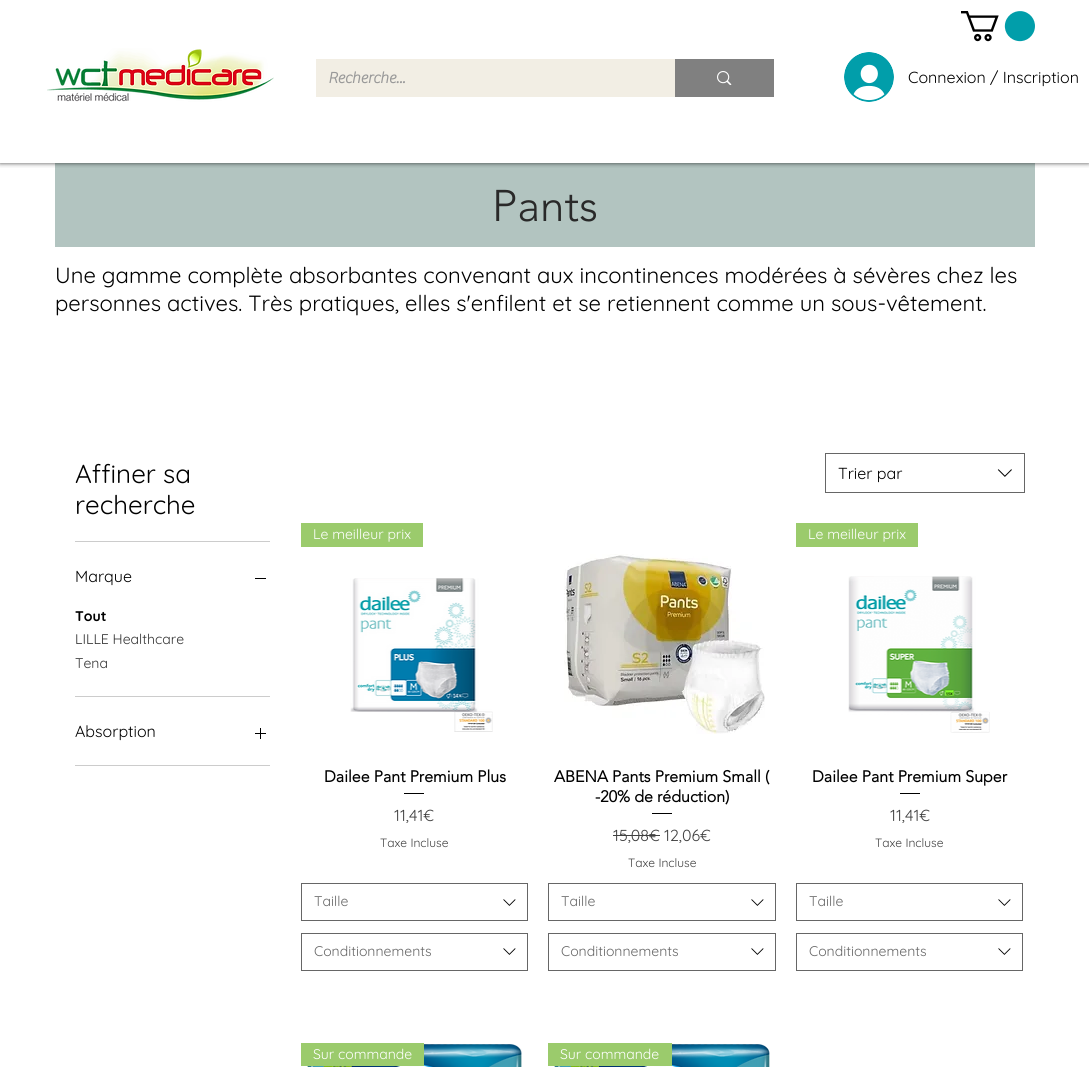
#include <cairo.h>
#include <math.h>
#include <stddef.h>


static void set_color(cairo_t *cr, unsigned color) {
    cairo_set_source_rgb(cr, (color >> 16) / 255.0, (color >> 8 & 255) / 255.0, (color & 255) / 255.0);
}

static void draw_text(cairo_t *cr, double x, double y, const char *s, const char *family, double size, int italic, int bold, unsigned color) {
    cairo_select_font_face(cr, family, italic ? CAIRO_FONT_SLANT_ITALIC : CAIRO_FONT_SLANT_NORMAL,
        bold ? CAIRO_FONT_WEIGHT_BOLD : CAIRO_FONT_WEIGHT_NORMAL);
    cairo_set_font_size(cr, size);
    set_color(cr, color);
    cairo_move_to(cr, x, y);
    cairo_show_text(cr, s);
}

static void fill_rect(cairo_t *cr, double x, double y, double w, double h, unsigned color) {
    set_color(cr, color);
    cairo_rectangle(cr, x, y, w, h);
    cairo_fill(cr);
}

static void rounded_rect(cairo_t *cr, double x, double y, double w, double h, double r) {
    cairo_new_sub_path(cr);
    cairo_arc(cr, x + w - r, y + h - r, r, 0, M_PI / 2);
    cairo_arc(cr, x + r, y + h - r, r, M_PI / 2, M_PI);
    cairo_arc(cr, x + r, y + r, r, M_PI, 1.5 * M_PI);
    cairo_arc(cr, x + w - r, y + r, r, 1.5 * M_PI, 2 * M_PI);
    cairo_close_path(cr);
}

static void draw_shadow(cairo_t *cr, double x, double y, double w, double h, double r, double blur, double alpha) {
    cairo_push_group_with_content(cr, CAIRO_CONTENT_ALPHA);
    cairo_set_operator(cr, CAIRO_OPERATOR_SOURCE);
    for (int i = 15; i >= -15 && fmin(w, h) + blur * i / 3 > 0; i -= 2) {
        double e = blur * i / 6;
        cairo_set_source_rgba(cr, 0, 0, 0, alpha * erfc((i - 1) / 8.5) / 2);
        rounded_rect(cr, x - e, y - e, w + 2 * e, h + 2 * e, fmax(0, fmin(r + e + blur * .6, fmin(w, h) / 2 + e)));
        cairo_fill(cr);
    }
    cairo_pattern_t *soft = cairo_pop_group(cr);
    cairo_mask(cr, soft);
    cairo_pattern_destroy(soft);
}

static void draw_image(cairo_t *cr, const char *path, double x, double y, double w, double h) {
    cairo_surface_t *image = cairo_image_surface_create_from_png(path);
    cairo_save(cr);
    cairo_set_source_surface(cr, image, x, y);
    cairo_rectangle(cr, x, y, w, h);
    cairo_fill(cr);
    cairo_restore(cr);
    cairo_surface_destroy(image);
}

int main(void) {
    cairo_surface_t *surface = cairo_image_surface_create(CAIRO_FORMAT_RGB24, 1089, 1067);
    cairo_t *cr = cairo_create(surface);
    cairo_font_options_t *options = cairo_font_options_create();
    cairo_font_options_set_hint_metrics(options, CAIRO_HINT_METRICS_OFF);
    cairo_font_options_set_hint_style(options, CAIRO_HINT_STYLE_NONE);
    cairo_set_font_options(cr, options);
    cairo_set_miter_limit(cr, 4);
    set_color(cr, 0xFFFFFF);
    cairo_paint(cr);
    fill_rect(cr, 55, 163, 980, 84, 0xB2C4C0);
    cairo_save(cr);
    cairo_rectangle(cr, 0, 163, 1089, 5);
    cairo_clip(cr);
    set_color(cr, 0x000000);
    draw_shadow(cr, 0, 0, 1089, 163, 0, 2.5, 0.7);
    cairo_restore(cr);
    draw_image(cr, "assets/img1.png", 961, 11, 74, 31);
    draw_image(cr, "assets/img2.png", 47, 48, 227, 54);
    fill_rect(cr, 316, 59, 359, 38, 0xF2EEE4);
    draw_text(cr, 328, 83, "Recherche...", "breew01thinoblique", 16, 0, 1, 0x999999);
    fill_rect(cr, 675, 59, 99, 38, 0x808080);
    draw_image(cr, "assets/img3.png", 717, 71, 15, 14);
    draw_image(cr, "assets/img4.png", 844, 52, 50, 50);
    draw_text(cr, 908, 83, "Connexion / Inscription", "Quicksand", 16, 0, 0, 0x000000);
    draw_text(cr, 492, 221, "Pants", "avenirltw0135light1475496 Light", 44, 0, 0, 0x292929);
    draw_text(cr, 55, 283, "Une gamme complète absorbantes convenant aux incontinences modérées à sévères chez les", "Quicksand", 22, 0, 0, 0x000000);
    draw_text(cr, 55, 311, "personnes actives. Très pratiques, elles s'enfilent et se retiennent comme un sous-vêtement.", "Quicksand", 22, 0, 0, 0x000000);
    fill_rect(cr, 75, 541, 195, 1, 0xCCCCCC);
    draw_text(cr, 75, 483, "Affiner sa", "Quicksand", 26, 0, 0, 0x000000);
    draw_text(cr, 75, 514, "recherche", "Quicksand", 26, 0, 0, 0x000000);
    fill_rect(cr, 75, 696, 195, 1, 0xCCCCCC);
    draw_text(cr, 75, 582, "Marque", "Quicksand", 16, 0, 0, 0x000000);
    fill_rect(cr, 255, 578, 11, 1, 0x000000);
    draw_text(cr, 75, 621, "Tout", "Quicksand", 14, 0, 1, 0x000000);
    draw_text(cr, 75, 644, "LILLE Healthcare", "Quicksand", 14, 0, 0, 0x333333);
    draw_text(cr, 75, 668, "Tena", "Quicksand", 14, 0, 0, 0x333333);
    fill_rect(cr, 75, 765, 195, 1, 0xCCCCCC);
    draw_text(cr, 75, 737, "Absorption", "Quicksand", 16, 0, 0, 0x000000);
    draw_image(cr, "assets/img5.png", 255, 728, 11, 11);
    cairo_rectangle(cr, 825.5, 453.5, 199, 39);
    set_color(cr, 0x666666);
    cairo_set_line_width(cr, 1);
    cairo_stroke(cr);
    draw_text(cr, 838, 479, "Trier par", "Quicksand", 16, 0, 0, 0x000000);
    draw_image(cr, "assets/img6.png", 997, 469, 15, 8);
    fill_rect(cr, 301, 523, 122, 24, 0x9BCB6C);
    draw_text(cr, 313, 539, "Le meilleur prix", "Quicksand", 14, 0, 0, 0xFFFFFF);
    draw_image(cr, "assets/img7.png", 350, 578, 143, 154);
    draw_text(cr, 324, 782, "Dailee Pant Premium Plus", "avenirltw0135light1475496", 16, 0, 1, 0x000000);
    fill_rect(cr, 404, 793, 20, 1, 0x000000);
    draw_text(cr, 394, 821, "11,41€", "Quicksand", 16, 0, 0, 0x404040);
    draw_text(cr, 380, 847, "Taxe Incluse", "Quicksand", 12, 0, 0, 0x404040);
    cairo_rectangle(cr, 301.5, 883.5, 226, 37);
    set_color(cr, 0x666666);
    cairo_stroke(cr);
    draw_text(cr, 314, 906, "Taille", "Quicksand", 14, 0, 0, 0x666666);
    draw_image(cr, "assets/img8.png", 503, 899, 13, 7);
    cairo_rectangle(cr, 301.5, 933.5, 226, 37);
    cairo_stroke(cr);
    draw_text(cr, 314, 956, "Conditionnements", "Quicksand", 14, 0, 0, 0x666666);
    draw_image(cr, "assets/img8.png", 503, 948, 13, 7);
    draw_image(cr, "assets/img9.png", 564, 554, 201, 180);
    draw_text(cr, 554, 782, "ABENA Pants Premium Small (", "avenirltw0135light1475496", 16, 0, 1, 0x000000);
    draw_text(cr, 595, 802, "-20% de réduction)", "avenirltw0135light1475496", 16, 0, 1, 0x000000);
    fill_rect(cr, 652, 813, 20, 1, 0x000000);
    draw_text(cr, 613, 841, "15,08€", "Quicksand", 16, 0, 0, 0x404040);
    fill_rect(cr, 613, 835, 47, 1, 0x404040);
    draw_text(cr, 664, 841, "12,06€", "Quicksand", 16, 0, 0, 0x404040);
    draw_text(cr, 628, 867, "Taxe Incluse", "Quicksand", 12, 0, 0, 0x404040);
    cairo_rectangle(cr, 548.5, 883.5, 227, 37);
    set_color(cr, 0x666666);
    cairo_stroke(cr);
    draw_text(cr, 561, 906, "Taille", "Quicksand", 14, 0, 0, 0x666666);
    draw_image(cr, "assets/img8.png", 751, 899, 13, 7);
    cairo_rectangle(cr, 548.5, 933.5, 227, 37);
    cairo_stroke(cr);
    draw_text(cr, 561, 956, "Conditionnements", "Quicksand", 14, 0, 0, 0x666666);
    draw_image(cr, "assets/img8.png", 751, 948, 13, 7);
    fill_rect(cr, 796, 523, 122, 24, 0x9BCB6C);
    draw_text(cr, 808, 539, "Le meilleur prix", "Quicksand", 14, 0, 0, 0xFFFFFF);
    draw_image(cr, "assets/img10.png", 848, 576, 142, 157);
    draw_text(cr, 812, 782, "Dailee Pant Premium Super", "avenirltw0135light1475496", 16, 0, 1, 0x000000);
    fill_rect(cr, 900, 793, 20, 1, 0x000000);
    draw_text(cr, 890, 821, "11,41€", "Quicksand", 16, 0, 0, 0x404040);
    draw_text(cr, 875, 847, "Taxe Incluse", "Quicksand", 12, 0, 0, 0x404040);
    cairo_rectangle(cr, 796.5, 883.5, 226, 37);
    set_color(cr, 0x666666);
    cairo_stroke(cr);
    draw_text(cr, 809, 906, "Taille", "Quicksand", 14, 0, 0, 0x666666);
    draw_image(cr, "assets/img8.png", 998, 899, 13, 7);
    cairo_rectangle(cr, 796.5, 933.5, 226, 37);
    cairo_stroke(cr);
    draw_text(cr, 809, 956, "Conditionnements", "Quicksand", 14, 0, 0, 0x666666);
    draw_image(cr, "assets/img8.png", 998, 948, 13, 7);
    draw_image(cr, "assets/img11.png", 307, 1044, 215, 23);
    fill_rect(cr, 301, 1043, 123, 23, 0x9BCB6C);
    draw_text(cr, 313, 1059, "Sur commande", "Quicksand", 14, 0, 0, 0xFFFFFF);
    draw_image(cr, "assets/img12.png", 554, 1044, 216, 23);
    fill_rect(cr, 548, 1043, 124, 23, 0x9BCB6C);
    draw_text(cr, 560, 1059, "Sur commande", "Quicksand", 14, 0, 0, 0xFFFFFF);
    cairo_surface_write_to_png(surface, "output.png");
    cairo_font_options_destroy(options);
    cairo_destroy(cr);
    cairo_surface_destroy(surface);
    return 0;
}
